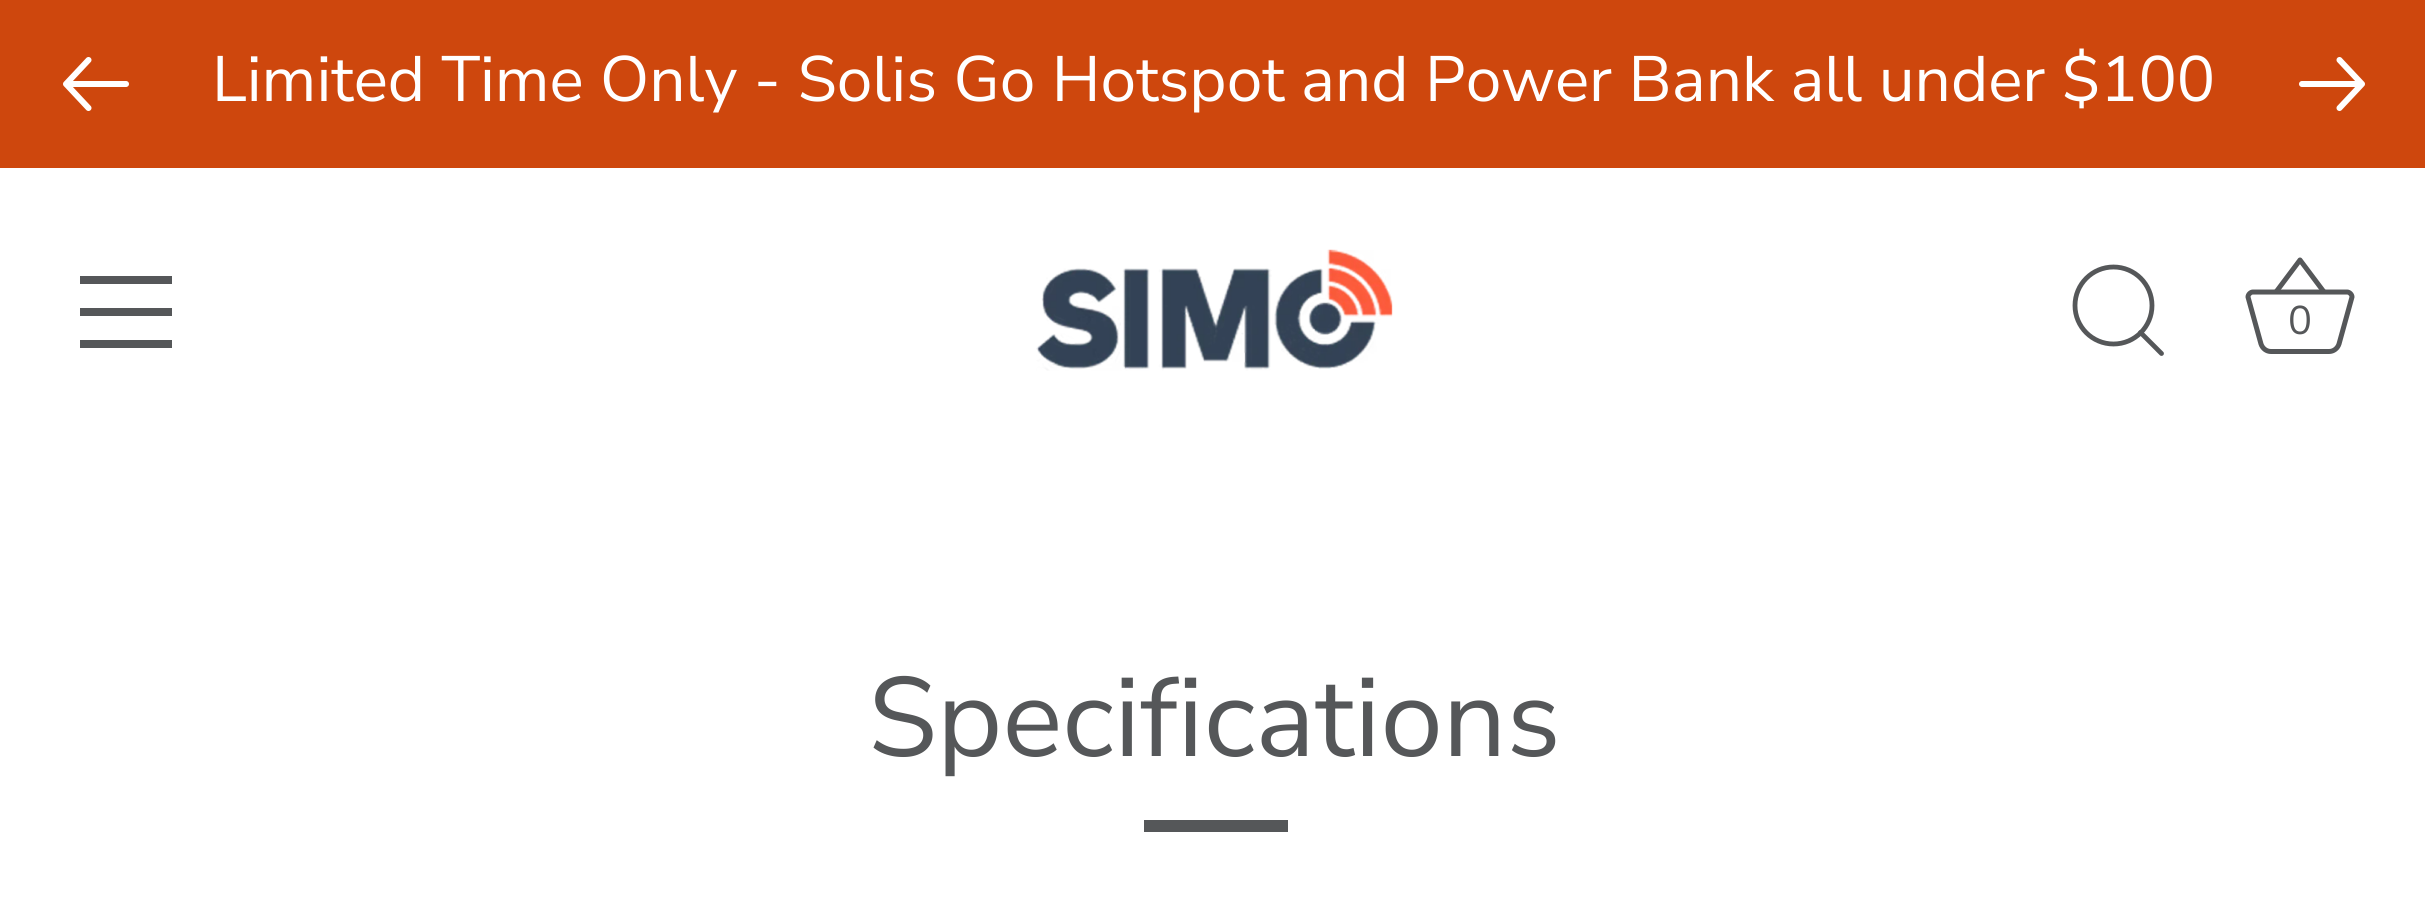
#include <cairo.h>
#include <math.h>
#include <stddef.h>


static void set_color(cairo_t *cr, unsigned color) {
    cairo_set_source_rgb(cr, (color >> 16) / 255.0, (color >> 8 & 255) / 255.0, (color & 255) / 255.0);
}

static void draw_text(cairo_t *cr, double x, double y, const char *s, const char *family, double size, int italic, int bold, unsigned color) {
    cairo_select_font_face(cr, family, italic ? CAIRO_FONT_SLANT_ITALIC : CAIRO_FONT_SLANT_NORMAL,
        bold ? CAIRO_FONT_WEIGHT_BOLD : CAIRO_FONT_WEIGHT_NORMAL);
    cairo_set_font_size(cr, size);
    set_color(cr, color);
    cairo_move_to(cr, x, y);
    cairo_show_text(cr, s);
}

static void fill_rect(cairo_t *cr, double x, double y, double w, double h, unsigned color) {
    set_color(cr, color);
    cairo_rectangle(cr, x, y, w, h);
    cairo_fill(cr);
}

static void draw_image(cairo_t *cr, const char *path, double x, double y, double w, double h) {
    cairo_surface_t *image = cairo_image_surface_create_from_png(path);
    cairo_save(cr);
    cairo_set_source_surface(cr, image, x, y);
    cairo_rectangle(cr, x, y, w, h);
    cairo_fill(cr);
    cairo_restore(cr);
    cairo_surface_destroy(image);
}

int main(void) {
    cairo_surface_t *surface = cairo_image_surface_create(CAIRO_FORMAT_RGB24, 2425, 923);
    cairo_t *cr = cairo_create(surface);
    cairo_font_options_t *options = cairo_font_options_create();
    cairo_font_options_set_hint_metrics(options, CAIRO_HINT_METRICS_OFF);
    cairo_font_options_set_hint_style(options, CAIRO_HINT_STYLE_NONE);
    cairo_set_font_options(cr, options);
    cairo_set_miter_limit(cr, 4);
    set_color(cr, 0xFFFFFF);
    cairo_paint(cr);
    fill_rect(cr, 0, 0, 2425, 168, 0xCE470D);
    cairo_new_path(cr);
    cairo_move_to(cr, 126, 84);
    cairo_line_to(cr, 66, 84);
    cairo_move_to(cr, 66, 84);
    cairo_line_to(cr, 88.5, 60);
    cairo_move_to(cr, 66, 84);
    cairo_line_to(cr, 88.5, 108);
    set_color(cr, 0xFFFFFF);
    cairo_set_line_width(cr, 6);
    cairo_set_line_cap(cr, CAIRO_LINE_CAP_ROUND);
    cairo_set_line_join(cr, CAIRO_LINE_JOIN_ROUND);
    cairo_stroke(cr);
    draw_text(cr, 212, 101, "Limited Time Only - Solis Go Hotspot and Power Bank all under $100", "Nunito Sans", 64, 0, 0, 0xFFFFFF);
    cairo_new_path(cr);
    cairo_move_to(cr, 2302, 84);
    cairo_line_to(cr, 2362, 84);
    cairo_move_to(cr, 2362, 84);
    cairo_line_to(cr, 2339.5, 60);
    cairo_move_to(cr, 2362, 84);
    cairo_line_to(cr, 2339.5, 108);
    cairo_stroke(cr);
    fill_rect(cr, 80, 276, 92, 8, 0x555759);
    fill_rect(cr, 80, 308, 92, 8, 0x555759);
    fill_rect(cr, 80, 340, 92, 8, 0x555759);
    draw_image(cr, "assets/img1.png", 1036, 249, 357, 122);
    cairo_arc(cr, 2113.5, 305.5, 38.5, 0, 2 * M_PI);
    cairo_set_line_width(cr, 4.8);
    cairo_set_line_cap(cr, CAIRO_LINE_CAP_BUTT);
    cairo_set_line_join(cr, CAIRO_LINE_JOIN_MITER);
    cairo_stroke(cr);
    cairo_new_path(cr);
    cairo_move_to(cr, 2161.5, 353.5);
    cairo_line_to(cr, 2140.5, 332.5);
    cairo_set_line_cap(cr, CAIRO_LINE_CAP_ROUND);
    cairo_set_line_join(cr, CAIRO_LINE_JOIN_ROUND);
    cairo_stroke(cr);
    cairo_new_path(cr);
    cairo_move_to(cr, 2253, 292);
    cairo_curve_to(cr, 2250.5, 292, 2248, 294.5, 2248, 297);
    cairo_line_to(cr, 2261, 344);
    cairo_curve_to(cr, 2262.5, 348.5, 2266.5, 351.5, 2271, 351.5);
    cairo_line_to(cr, 2329, 351.5);
    cairo_curve_to(cr, 2333.5, 351.5, 2337.5, 348.5, 2339, 344);
    cairo_line_to(cr, 2352, 297);
    cairo_curve_to(cr, 2352, 294.5, 2349.5, 292, 2347, 292);
    cairo_line_to(cr, 2253, 292);
    cairo_set_line_width(cr, 5);
    cairo_set_line_cap(cr, CAIRO_LINE_CAP_BUTT);
    cairo_stroke(cr);
    cairo_new_path(cr);
    cairo_move_to(cr, 2276, 292);
    cairo_line_to(cr, 2300, 260);
    cairo_line_to(cr, 2324, 292);
    cairo_stroke(cr);
    draw_text(cr, 2288, 334, "0", "Nunito Sans", 40, 0, 0, 0x555759);
    draw_text(cr, 868, 756, "Specifications", "Nunito Sans", 112.25, 0, 0, 0x555759);
    fill_rect(cr, 1144, 820, 144, 12, 0x555759);
    cairo_surface_write_to_png(surface, "output.png");
    cairo_font_options_destroy(options);
    cairo_destroy(cr);
    cairo_surface_destroy(surface);
    return 0;
}
